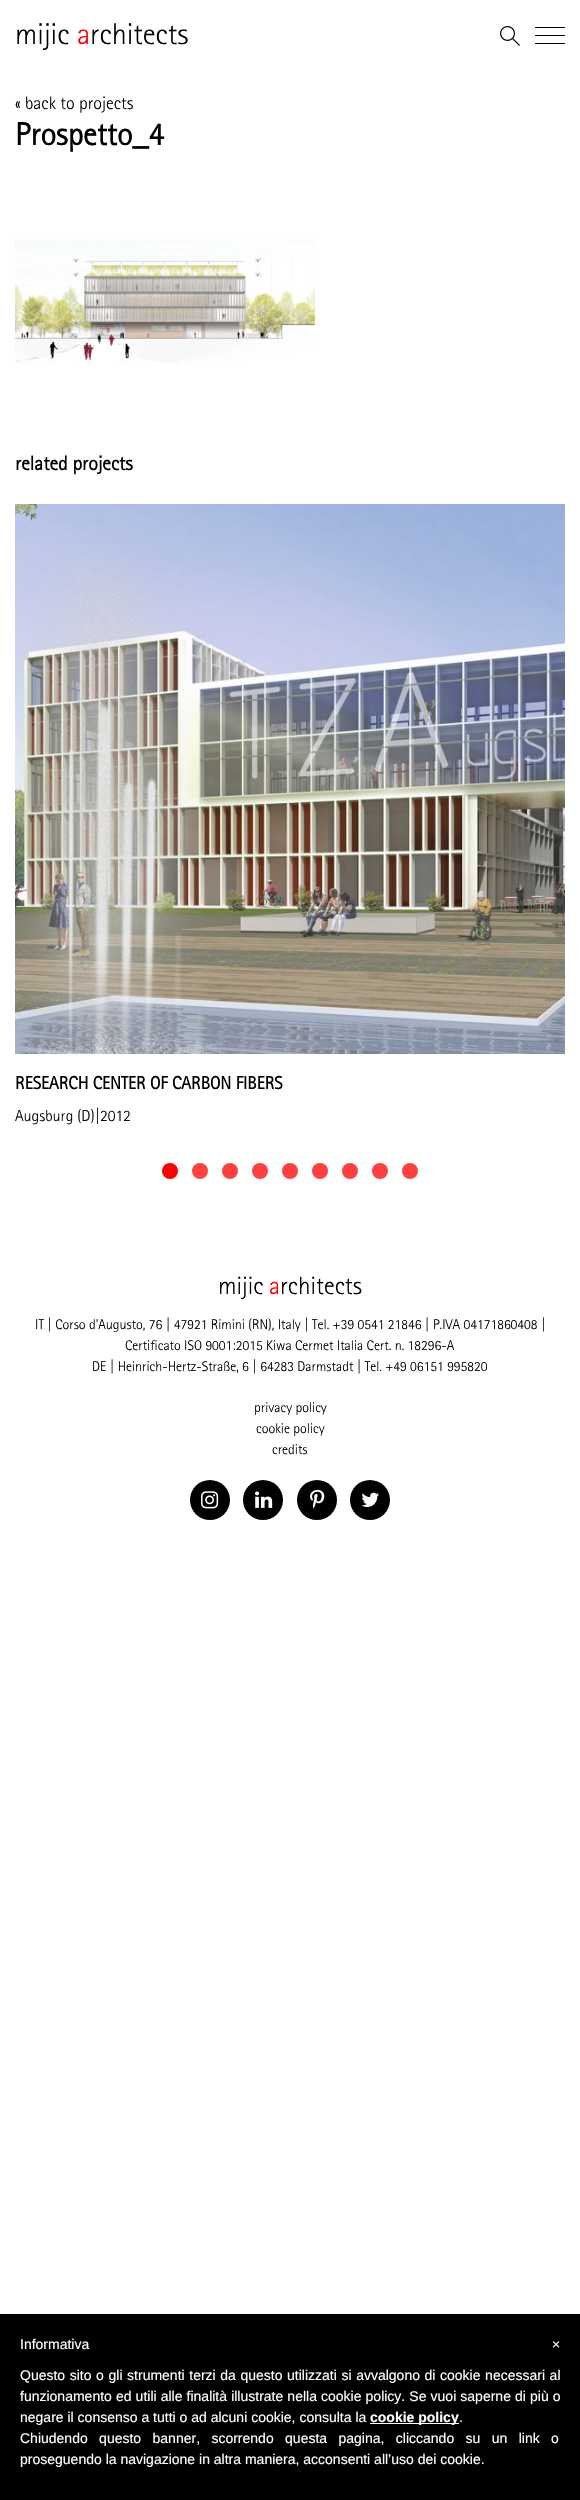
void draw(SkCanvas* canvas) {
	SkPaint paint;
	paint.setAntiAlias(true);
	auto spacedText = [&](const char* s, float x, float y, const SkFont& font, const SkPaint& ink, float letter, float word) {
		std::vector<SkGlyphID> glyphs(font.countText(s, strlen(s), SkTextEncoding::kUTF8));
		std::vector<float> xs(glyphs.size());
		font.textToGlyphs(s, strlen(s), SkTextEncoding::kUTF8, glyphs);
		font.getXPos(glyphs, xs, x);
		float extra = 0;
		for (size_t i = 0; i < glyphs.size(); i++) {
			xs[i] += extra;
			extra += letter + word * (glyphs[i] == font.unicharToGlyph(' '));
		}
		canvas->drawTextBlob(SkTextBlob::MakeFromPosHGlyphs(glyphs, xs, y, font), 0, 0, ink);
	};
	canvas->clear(0xffffffff);
	SkFont f1(fontMgr->matchFamilyStyle("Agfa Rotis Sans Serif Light", SkFontStyle(300, SkFontStyle::kNormal_Width, SkFontStyle::kUpright_Slant)), 30);
	f1.setSubpixel(true);
	paint.setColor(0xff000000);
	canvas->drawString("mijic", 15, 44, f1, paint);
	paint.setColor(0xffff0000);
	canvas->drawString("a", 77, 44, f1, paint);
	paint.setColor(0xff000000);
	canvas->drawString("rchitects", 90, 44, f1, paint);
	canvas->drawImageRect(SkImages::DeferredFromEncodedData(SkData::MakeFromFileName("img1.png")), SkRect::MakeXYWH(500, 26, 20, 20), SkSamplingOptions());
	canvas->drawRoundRect(SkRect::MakeXYWH(535, 35, 30, 1), 0.5, 0.5, paint);
	canvas->drawRoundRect(SkRect::MakeXYWH(535, 27, 30, 1), 0.5, 0.5, paint);
	canvas->drawRoundRect(SkRect::MakeXYWH(535, 43, 30, 1), 0.5, 0.5, paint);
	SkFont f2(fontMgr->matchFamilyStyle("Agfa Rotis Sans Serif Light", SkFontStyle(300, SkFontStyle::kNormal_Width, SkFontStyle::kUpright_Slant)), 18);
	f2.setSubpixel(true);
	canvas->drawString("« back to projects", 15, 109, f2, paint);
	SkFont f3(fontMgr->matchFamilyStyle("Agfa Rotis Sans Serif Light", SkFontStyle::Bold()), 32);
	f3.setSubpixel(true);
	canvas->drawString("Prospetto_4", 15, 145, f3, paint);
	canvas->drawImageRect(SkImages::DeferredFromEncodedData(SkData::MakeFromFileName("img2.png")), SkRect::MakeXYWH(15, 239, 300, 126), SkSamplingOptions());
	SkFont f4(fontMgr->matchFamilyStyle("Agfa Rotis Sans Serif Light", SkFontStyle::Bold()), 20);
	f4.setSubpixel(true);
	canvas->drawString("related projects", 15, 470, f4, paint);
	canvas->drawImageRect(SkImages::DeferredFromEncodedData(SkData::MakeFromFileName("img3.png")), SkRect::MakeXYWH(15, 504, 550, 550), SkSamplingOptions());
	SkFont f5(fontMgr->matchFamilyStyle("Agfa Rotis Sans Serif Light", SkFontStyle::Bold()), 18);
	f5.setSubpixel(true);
	canvas->drawString("RESEARCH CENTER OF CARBON FIBERS", 15, 1089, f5, paint);
	SkFont f6(fontMgr->matchFamilyStyle("Agfa Rotis Sans Serif Light", SkFontStyle(300, SkFontStyle::kNormal_Width, SkFontStyle::kUpright_Slant)), 16);
	f6.setSubpixel(true);
	canvas->drawString("Augsburg (D)|2012", 15, 1121, f6, paint);
	paint.setColor(0xffff0000);
	canvas->drawCircle(170, 1171, 8, paint);
	paint.setColor(0xffff4040);
	canvas->drawCircle(200, 1171, 8, paint);
	canvas->drawCircle(230, 1171, 8, paint);
	canvas->drawCircle(260, 1171, 8, paint);
	canvas->drawCircle(290, 1171, 8, paint);
	canvas->drawCircle(320, 1171, 8, paint);
	canvas->drawCircle(350, 1171, 8, paint);
	canvas->drawCircle(380, 1171, 8, paint);
	canvas->drawCircle(410, 1171, 8, paint);
	SkFont f7(fontMgr->matchFamilyStyle("Agfa Rotis Sans Serif Light", SkFontStyle(300, SkFontStyle::kNormal_Width, SkFontStyle::kUpright_Slant)), 25);
	f7.setSubpixel(true);
	paint.setColor(0xff000000);
	canvas->drawString("mijic", 218, 1294, f7, paint);
	paint.setColor(0xffff0000);
	canvas->drawString("a", 269, 1294, f7, paint);
	paint.setColor(0xff000000);
	canvas->drawString("rchitects", 280, 1294, f7, paint);
	SkFont f8(fontMgr->matchFamilyStyle("Agfa Rotis Sans Serif Light", SkFontStyle(300, SkFontStyle::kNormal_Width, SkFontStyle::kUpright_Slant)), 14);
	f8.setSubpixel(true);
	canvas->drawString("IT | Corso d'Augusto, 76 | 47921 Rimini (RN), Italy | Tel. +39 0541 21846 | P.IVA 04171860408 |", 35, 1329, f8, paint);
	canvas->drawString("Certificato ISO 9001:2015 Kiwa Cermet Italia Cert. n. 18296-A", 125, 1350, f8, paint);
	canvas->drawString("DE | Heinrich-Hertz-Straße, 6 | 64283 Darmstadt | Tel. +49 06151 995820", 92, 1371, f8, paint);
	canvas->drawString("privacy policy", 254, 1412, f8, paint);
	canvas->drawString("cookie policy", 256, 1433, f8, paint);
	canvas->drawString("credits", 272, 1454, f8, paint);
	canvas->drawCircle(210, 1500, 20, paint);
	canvas->drawImageRect(SkImages::DeferredFromEncodedData(SkData::MakeFromFileName("img4.png")), SkRect::MakeXYWH(201, 1491, 18, 18), SkSamplingOptions());
	canvas->drawCircle(263, 1500, 20, paint);
	canvas->drawImageRect(SkImages::DeferredFromEncodedData(SkData::MakeFromFileName("img5.png")), SkRect::MakeXYWH(255, 1491, 18, 17), SkSamplingOptions());
	canvas->drawCircle(317, 1500, 20, paint);
	canvas->drawImageRect(SkImages::DeferredFromEncodedData(SkData::MakeFromFileName("img6.png")), SkRect::MakeXYWH(310, 1489, 15, 20), SkSamplingOptions());
	canvas->drawCircle(370, 1500, 20, paint);
	canvas->drawImageRect(SkImages::DeferredFromEncodedData(SkData::MakeFromFileName("img7.png")), SkRect::MakeXYWH(361, 1492, 18, 15), SkSamplingOptions());
	canvas->drawRect(SkRect::MakeXYWH(0, 2314, 580, 186), paint);
	SkFont f9(fontMgr->matchFamilyStyle("Liberation Sans", SkFontStyle::Normal()), 14);
	f9.setSubpixel(true);
	paint.setColor(0xffffffff);
	canvas->drawString("Informativa", 20, 2349, f9, paint);
	spacedText("Questo sito o gli strumenti terzi da questo utilizzati si avvalgono di cookie necessari al", 20, 2380, f9, paint, 0, 0.7);
	spacedText("funzionamento ed utili alle finalità illustrate nella cookie policy. Se vuoi saperne di più o", 20, 2401, f9, paint, 0, 0.2);
	canvas->drawString("negare il consenso a tutti o ad alcuni cookie, consulta la", 20, 2422, f9, paint);
	canvas->drawRect(SkRect::MakeXYWH(370, 2423, 89, 1), paint);
	SkFont f10(fontMgr->matchFamilyStyle("Liberation Sans", SkFontStyle::Bold()), 14);
	f10.setSubpixel(true);
	canvas->drawString("cookie policy", 370, 2422, f10, paint);
	canvas->drawString(".", 459, 2422, f9, paint);
	spacedText("Chiudendo questo banner, scorrendo questa pagina, cliccando su un link o", 20, 2443, f9, paint, 0, 7.5);
	canvas->drawString("proseguendo la navigazione in altra maniera, acconsenti all’uso dei cookie.", 20, 2464, f9, paint);
	canvas->drawString("×", 552, 2349, f9, paint);
}
